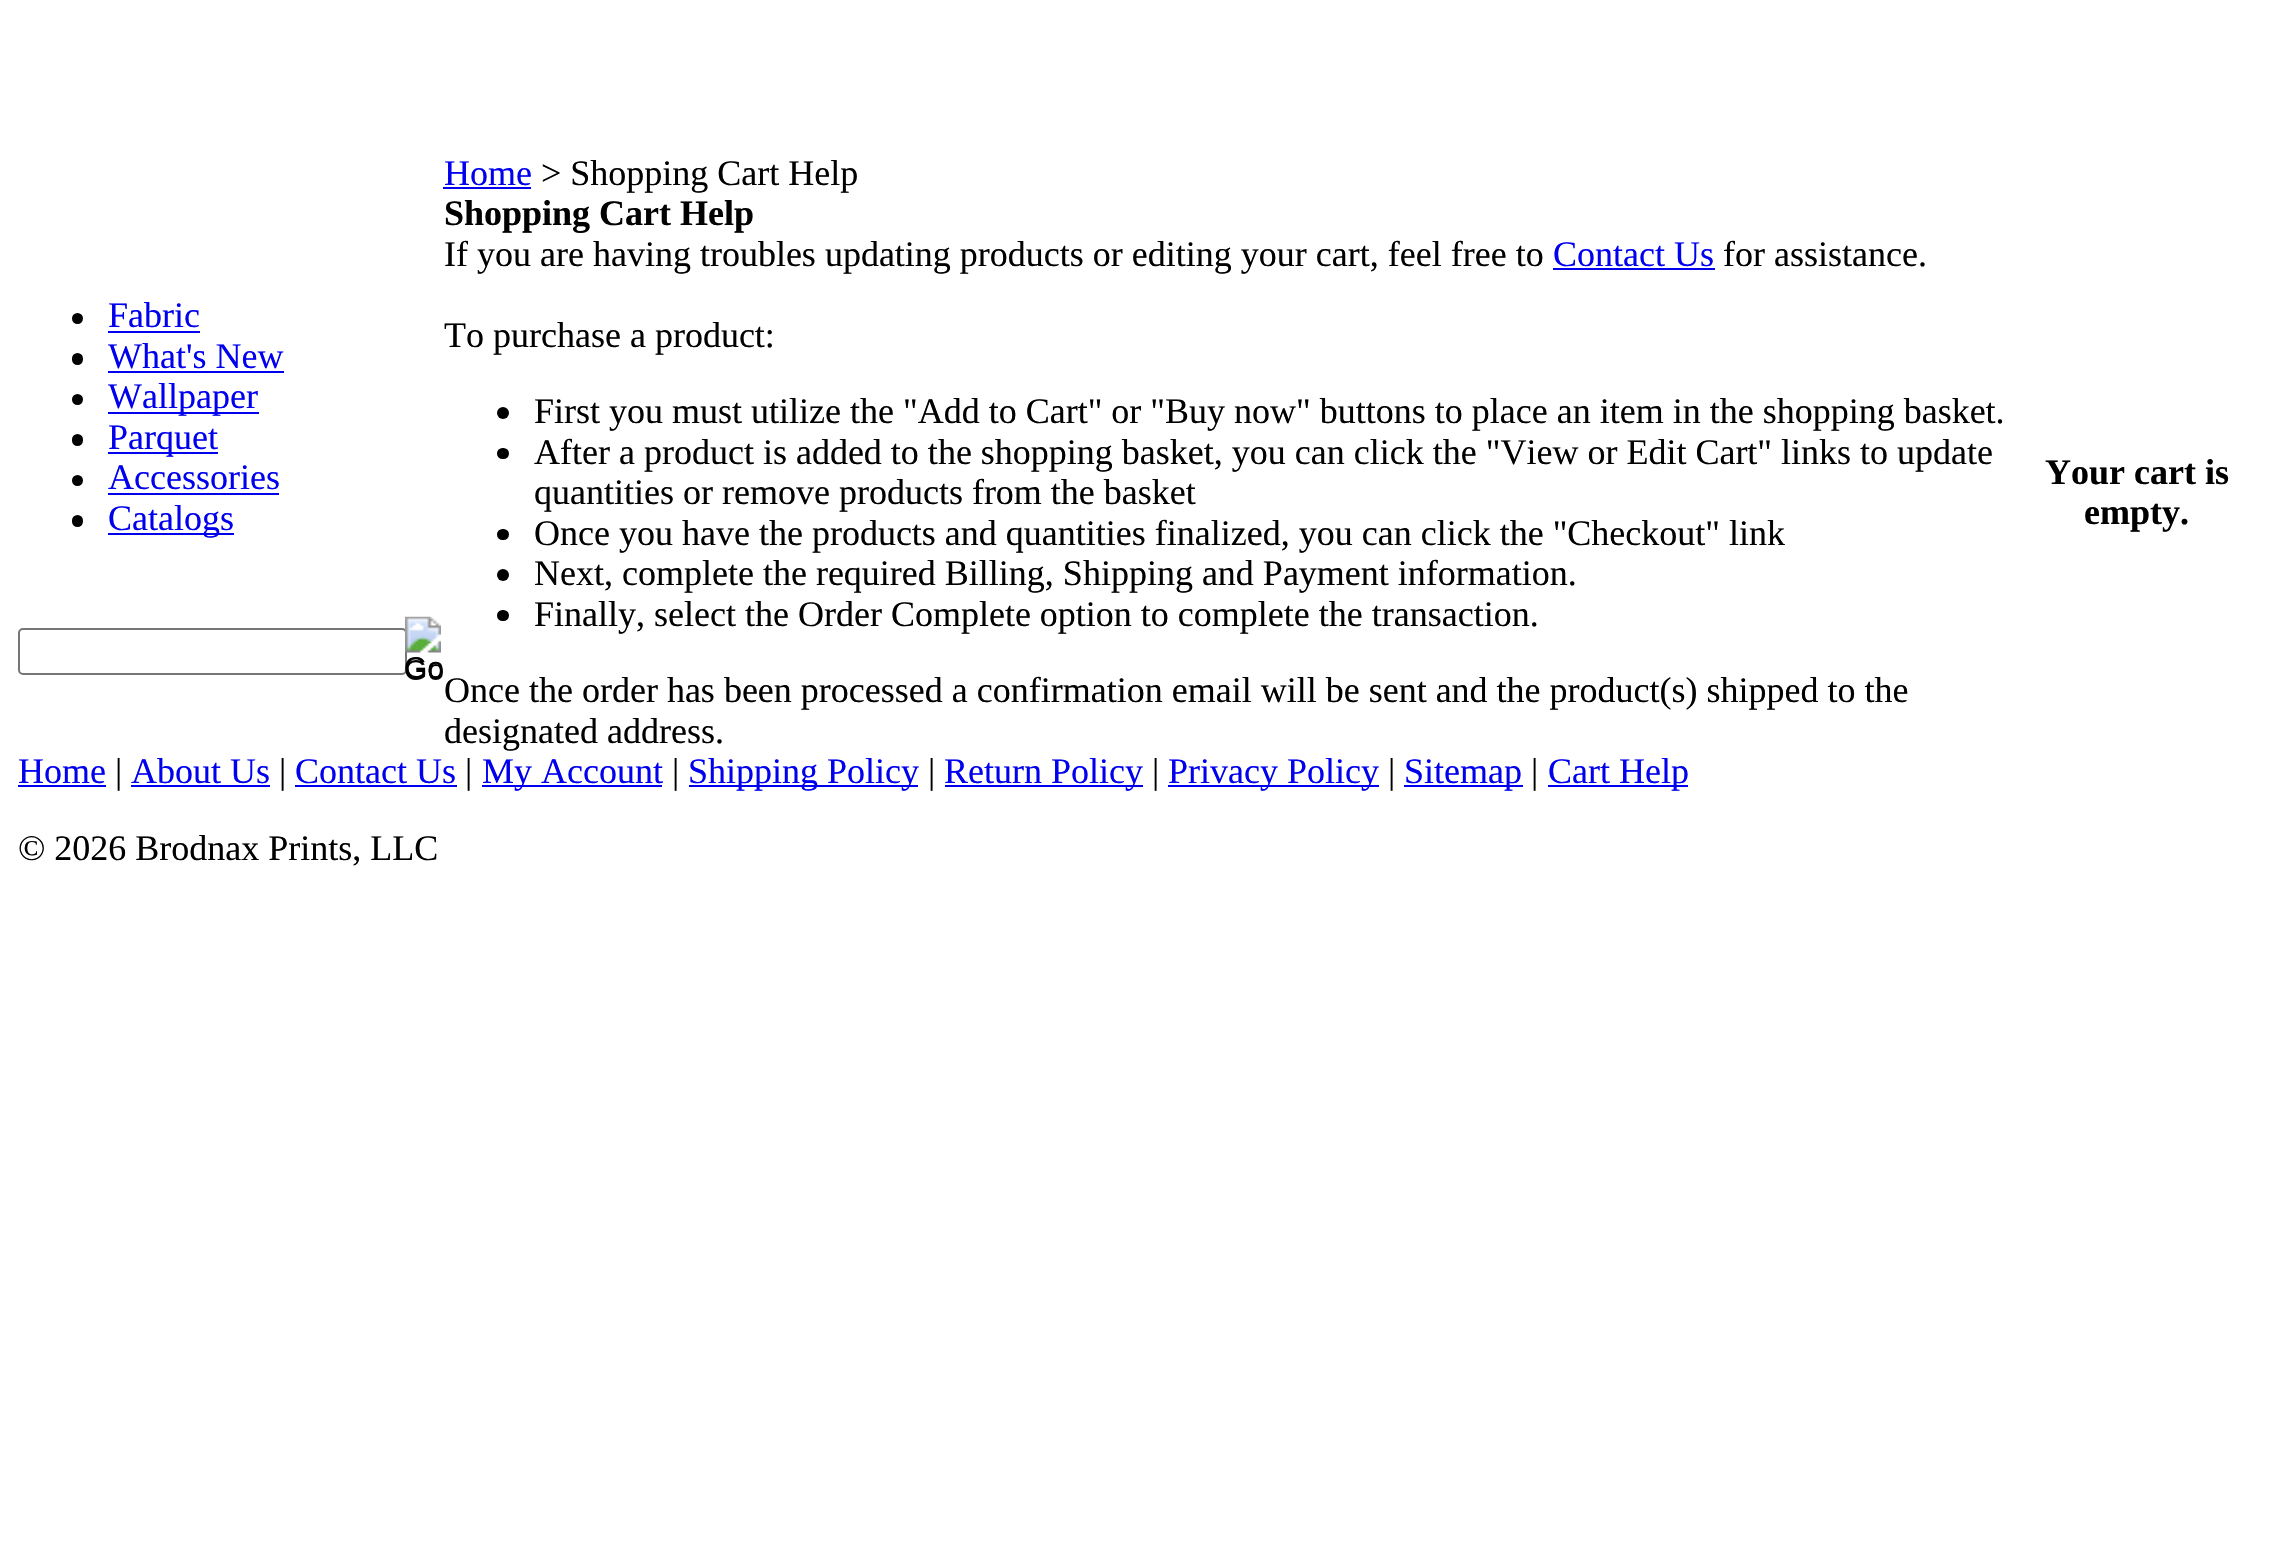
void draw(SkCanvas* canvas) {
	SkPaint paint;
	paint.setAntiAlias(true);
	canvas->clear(0xffffffff);
	paint.setColor(0xff000000);
	canvas->drawCircle(77.5, 318.5, 5.5, paint);
	SkFont f1(fontMgr->matchFamilyStyle("Liberation Serif", SkFontStyle::Normal()), 36);
	f1.setSubpixel(true);
	paint.setColor(0xff0000ee);
	canvas->drawString("Fabric", 108, 327, f1, paint);
	canvas->drawRect(SkRect::MakeXYWH(108, 331, 92, 2), paint);
	paint.setColor(0xff000000);
	canvas->drawRoundRect(SkRect::MakeXYWH(72, 353, 11, 12), 5.5, 5.5, paint);
	paint.setColor(0xff0000ee);
	canvas->drawString("What's New", 108, 368, f1, paint);
	canvas->drawRect(SkRect::MakeXYWH(108, 371, 176, 2), paint);
	paint.setColor(0xff000000);
	canvas->drawCircle(77.5, 399.5, 5.5, paint);
	paint.setColor(0xff0000ee);
	canvas->drawRect(SkRect::MakeXYWH(108, 412, 151, 2), paint);
	canvas->drawString("Wallpaper", 108, 408, f1, paint);
	paint.setColor(0xff000000);
	canvas->drawRoundRect(SkRect::MakeXYWH(72, 434, 11, 12), 5.5, 5.5, paint);
	paint.setColor(0xff0000ee);
	canvas->drawRect(SkRect::MakeXYWH(108, 452, 110, 2), paint);
	canvas->drawString("Parquet", 108, 449, f1, paint);
	paint.setColor(0xff000000);
	canvas->drawCircle(77.5, 480.5, 5.5, paint);
	paint.setColor(0xff0000ee);
	canvas->drawString("Accessories", 108, 489, f1, paint);
	canvas->drawRect(SkRect::MakeXYWH(108, 493, 171, 2), paint);
	paint.setColor(0xff000000);
	canvas->drawRoundRect(SkRect::MakeXYWH(72, 515, 11, 12), 5.5, 5.5, paint);
	paint.setColor(0xff0000ee);
	canvas->drawRect(SkRect::MakeXYWH(108, 533, 126, 2), paint);
	canvas->drawString("Catalogs", 108, 530, f1, paint);
	paint.setStroke(true);
	paint.setStrokeWidth(2);
	paint.setColor(0xff767676);
	canvas->drawRoundRect(SkRect::MakeXYWH(19, 629, 387, 45), 4, 4, paint);
	canvas->drawImageRect(SkImages::DeferredFromEncodedData(SkData::MakeFromFileName("img1.png")), SkRect::MakeXYWH(405, 616, 38, 64), SkSamplingOptions());
	SkFont f2(fontMgr->matchFamilyStyle("Liberation Sans", SkFontStyle::Normal()), 30);
	f2.setSubpixel(true);
	paint.setStroke(false);
	paint.setColor(0xff000000);
	canvas->drawString("Go", 404, 678, f2, paint);
	paint.setColor(0xff0000ee);
	canvas->drawString("Home", 444, 185, f1, paint);
	canvas->drawRect(SkRect::MakeXYWH(443, 187, 88, 2), paint);
	paint.setColor(0xff000000);
	canvas->drawString("> Shopping Cart Help", 541, 185, f1, paint);
	SkFont f3(fontMgr->matchFamilyStyle("Liberation Serif", SkFontStyle::Bold()), 36);
	f3.setSubpixel(true);
	canvas->drawString("Shopping Cart Help", 444, 225, f3, paint);
	canvas->drawString("If you are having troubles updating products or editing your cart, feel free to", 444, 266, f1, paint);
	paint.setColor(0xff0000ee);
	canvas->drawString("Contact Us", 1553, 266, f1, paint);
	canvas->drawRect(SkRect::MakeXYWH(1553, 268, 162, 2), paint);
	paint.setColor(0xff000000);
	canvas->drawString("for assistance.", 1723, 266, f1, paint);
	canvas->drawString("To purchase a product:", 444, 347, f1, paint);
	canvas->drawCircle(503, 413, 6, paint);
	canvas->drawString("First you must utilize the \"Add to Cart\" or \"Buy now\" buttons to place an item in the shopping basket.", 534, 423, f1, paint);
	canvas->drawRoundRect(SkRect::MakeXYWH(497, 448, 12, 11), 5.5, 5.5, paint);
	canvas->drawString("After a product is added to the shopping basket, you can click the \"View or Edit Cart\" links to update", 534, 464, f1, paint);
	canvas->drawString("quantities or remove products from the basket", 534, 504, f1, paint);
	canvas->drawRoundRect(SkRect::MakeXYWH(497, 529, 12, 11), 5.5, 5.5, paint);
	canvas->drawString("Once you have the products and quantities finalized, you can click the \"Checkout\" link", 534, 545, f1, paint);
	canvas->drawCircle(503, 575, 6, paint);
	canvas->drawString("Next, complete the required Billing, Shipping and Payment information.", 534, 585, f1, paint);
	canvas->drawRoundRect(SkRect::MakeXYWH(497, 610, 12, 11), 5.5, 5.5, paint);
	canvas->drawString("Finally, select the Order Complete option to complete the transaction.", 534, 626, f1, paint);
	canvas->drawString("Once the order has been processed a confirmation email will be sent and the product(s) shipped to the", 444, 702, f1, paint);
	canvas->drawString("designated address.", 444, 743, f1, paint);
	canvas->drawString("Your cart is", 2045, 484, f3, paint);
	canvas->drawString("empty.", 2084, 524, f3, paint);
	paint.setColor(0xff0000ee);
	canvas->drawString("Home", 18, 783, f1, paint);
	canvas->drawRect(SkRect::MakeXYWH(18, 785, 88, 2), paint);
	paint.setColor(0xff000000);
	canvas->drawString("|", 115, 783, f1, paint);
	paint.setColor(0xff0000ee);
	canvas->drawString("About Us", 131, 783, f1, paint);
	canvas->drawRect(SkRect::MakeXYWH(131, 785, 139, 2), paint);
	paint.setColor(0xff000000);
	canvas->drawString("|", 279, 783, f1, paint);
	paint.setColor(0xff0000ee);
	canvas->drawString("Contact Us", 295, 783, f1, paint);
	canvas->drawRect(SkRect::MakeXYWH(295, 785, 162, 2), paint);
	paint.setColor(0xff000000);
	canvas->drawString("|", 465, 783, f1, paint);
	paint.setColor(0xff0000ee);
	canvas->drawRect(SkRect::MakeXYWH(482, 785, 180, 2), paint);
	canvas->drawString("My Account", 482, 783, f1, paint);
	paint.setColor(0xff000000);
	canvas->drawString("|", 672, 783, f1, paint);
	paint.setColor(0xff0000ee);
	canvas->drawRect(SkRect::MakeXYWH(689, 785, 229, 2), paint);
	canvas->drawString("Shipping Policy", 688, 783, f1, paint);
	paint.setColor(0xff000000);
	canvas->drawString("|", 928, 783, f1, paint);
	paint.setColor(0xff0000ee);
	canvas->drawRect(SkRect::MakeXYWH(945, 785, 198, 2), paint);
	canvas->drawString("Return Policy", 944, 783, f1, paint);
	paint.setColor(0xff000000);
	canvas->drawString("|", 1152, 783, f1, paint);
	paint.setColor(0xff0000ee);
	canvas->drawRect(SkRect::MakeXYWH(1168, 785, 211, 2), paint);
	canvas->drawString("Privacy Policy", 1168, 783, f1, paint);
	paint.setColor(0xff000000);
	canvas->drawString("|", 1388, 783, f1, paint);
	paint.setColor(0xff0000ee);
	canvas->drawRect(SkRect::MakeXYWH(1404, 785, 119, 2), paint);
	canvas->drawString("Sitemap", 1404, 783, f1, paint);
	paint.setColor(0xff000000);
	canvas->drawString("|", 1531, 783, f1, paint);
	paint.setColor(0xff0000ee);
	canvas->drawRect(SkRect::MakeXYWH(1548, 785, 140, 2), paint);
	canvas->drawString("Cart Help", 1548, 783, f1, paint);
	paint.setColor(0xff000000);
	canvas->drawString("© 2026 Brodnax Prints, LLC", 18, 860, f1, paint);
}
